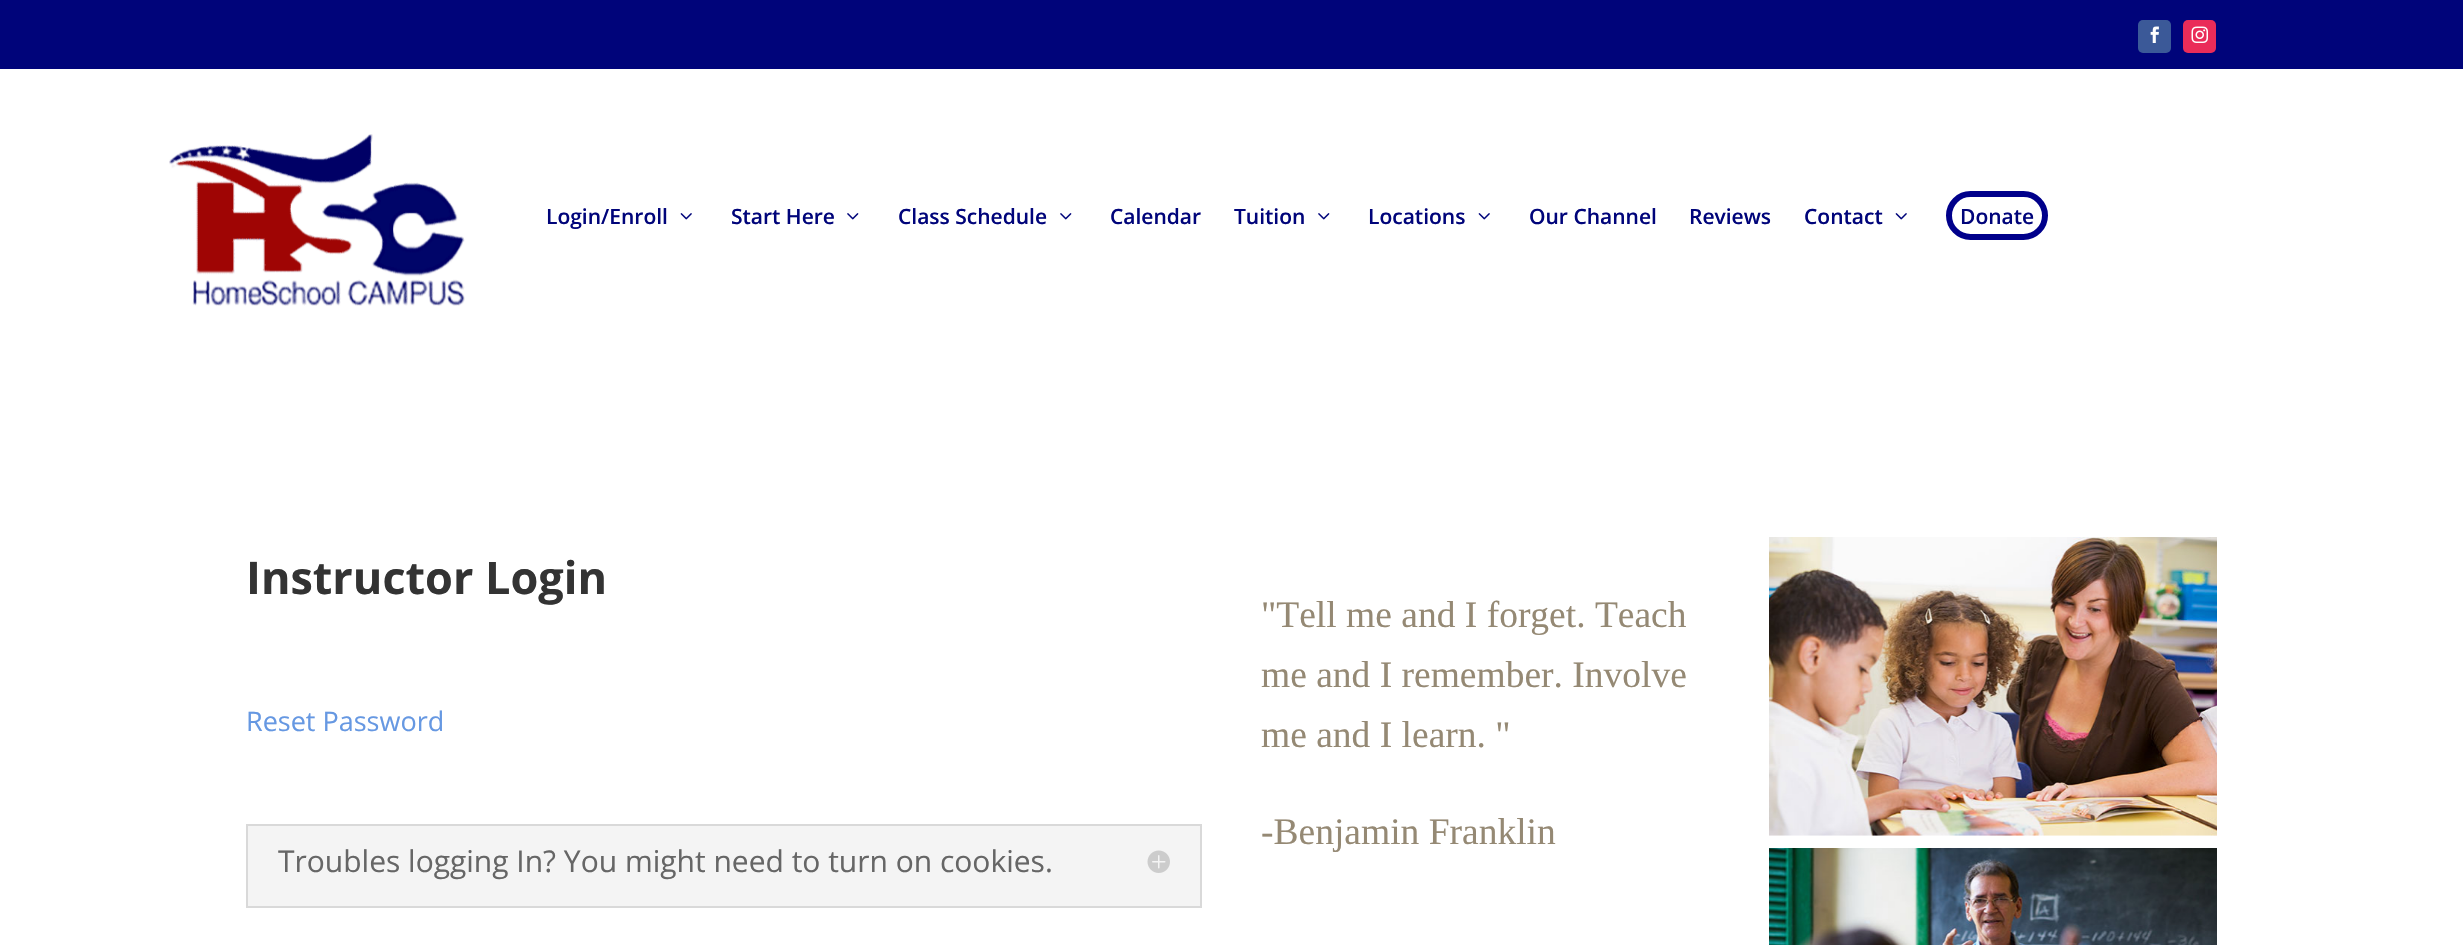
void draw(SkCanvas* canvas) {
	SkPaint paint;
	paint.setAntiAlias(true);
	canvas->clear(0xffffffff);
	paint.setColor(0xff00047a);
	canvas->drawRect(SkRect::MakeXYWH(0, 0, 2463, 69), paint);
	paint.setColor(0xff3b5998);
	canvas->drawRoundRect(SkRect::MakeXYWH(2138, 20, 33, 33), 5, 5, paint);
	canvas->drawImageRect(SkImages::DeferredFromEncodedData(SkData::MakeFromFileName("img1.png")), SkRect::MakeXYWH(2150, 26, 9, 17), SkSamplingOptions());
	paint.setColor(0xffea2c59);
	canvas->drawRoundRect(SkRect::MakeXYWH(2183, 20, 33, 33), 5, 5, paint);
	canvas->drawImageRect(SkImages::DeferredFromEncodedData(SkData::MakeFromFileName("img2.png")), SkRect::MakeXYWH(2191, 26, 17, 17), SkSamplingOptions());
	canvas->drawImageRect(SkImages::DeferredFromEncodedData(SkData::MakeFromFileName("img3.png")), SkRect::MakeXYWH(169, 134, 296, 172), SkSamplingOptions());
	SkFont f1(fontMgr->matchFamilyStyle("Open Sans", SkFontStyle(600, SkFontStyle::kNormal_Width, SkFontStyle::kUpright_Slant)), 21);
	f1.setSubpixel(true);
	paint.setColor(0xff00047a);
	canvas->drawString("Login/Enroll", 546, 224, f1, paint);
	canvas->drawImageRect(SkImages::DeferredFromEncodedData(SkData::MakeFromFileName("img4.png")), SkRect::MakeXYWH(680, 213, 12, 7), SkSamplingOptions());
	canvas->drawString("Start Here", 731, 224, f1, paint);
	canvas->drawImageRect(SkImages::DeferredFromEncodedData(SkData::MakeFromFileName("img5.png")), SkRect::MakeXYWH(847, 213, 12, 7), SkSamplingOptions());
	canvas->drawString("Class Schedule", 898, 224, f1, paint);
	canvas->drawImageRect(SkImages::DeferredFromEncodedData(SkData::MakeFromFileName("img5.png")), SkRect::MakeXYWH(1060, 213, 12, 7), SkSamplingOptions());
	canvas->drawString("Calendar", 1110, 224, f1, paint);
	canvas->drawString("Tuition", 1234, 224, f1, paint);
	canvas->drawImageRect(SkImages::DeferredFromEncodedData(SkData::MakeFromFileName("img5.png")), SkRect::MakeXYWH(1318, 213, 12, 7), SkSamplingOptions());
	canvas->drawString("Locations", 1368, 224, f1, paint);
	canvas->drawImageRect(SkImages::DeferredFromEncodedData(SkData::MakeFromFileName("img4.png")), SkRect::MakeXYWH(1478, 213, 12, 7), SkSamplingOptions());
	canvas->drawString("Our Channel", 1529, 224, f1, paint);
	canvas->drawString("Reviews", 1689, 224, f1, paint);
	canvas->drawString("Contact", 1804, 224, f1, paint);
	canvas->drawImageRect(SkImages::DeferredFromEncodedData(SkData::MakeFromFileName("img4.png")), SkRect::MakeXYWH(1895, 213, 12, 7), SkSamplingOptions());
	paint.setStroke(true);
	paint.setStrokeWidth(6);
	paint.setColor(0xff00008b);
	canvas->drawRoundRect(SkRect::MakeXYWH(1949, 194, 96, 43), 21.5, 21.5, paint);
	paint.setStroke(false);
	paint.setColor(0xff00047a);
	canvas->drawString("Donate", 1960, 224, f1, paint);
	SkFont f2(fontMgr->matchFamilyStyle("Open Sans", SkFontStyle::Bold()), 45);
	f2.setSubpixel(true);
	paint.setColor(0xff333333);
	canvas->drawString("Instructor Login", 246, 594, f2, paint);
	SkFont f3(fontMgr->matchFamilyStyle("Open Sans", SkFontStyle::Normal()), 27);
	f3.setSubpixel(true);
	paint.setColor(0xff6698e2);
	canvas->drawString("Reset Password", 246, 731, f3, paint);
	paint.setColor(0xfff4f4f4);
	canvas->drawRect(SkRect::MakeXYWH(247, 825, 954, 82), paint);
	paint.setStroke(true);
	paint.setStrokeWidth(2);
	paint.setColor(0xffd9d9d9);
	canvas->drawRect(SkRect::MakeXYWH(247, 825, 954, 82), paint);
	SkFont f4(fontMgr->matchFamilyStyle("Open Sans", SkFontStyle::Normal()), 30);
	f4.setSubpixel(true);
	paint.setStroke(false);
	paint.setColor(0xff666666);
	canvas->drawString("Troubles logging In? You might need to turn on cookies.", 278, 872, f4, paint);
	canvas->drawImageRect(SkImages::DeferredFromEncodedData(SkData::MakeFromFileName("img6.png")), SkRect::MakeXYWH(1147, 850, 23, 23), SkSamplingOptions());
	SkFont f5(fontMgr->matchFamilyStyle("Liberation Serif", SkFontStyle::Normal()), 37.5);
	f5.setSubpixel(true);
	paint.setColor(0xff958974);
	canvas->drawString("\"Tell me and I forget. Teach", 1261, 627, f5, paint);
	canvas->drawString("me and I remember. Involve", 1261, 687, f5, paint);
	canvas->drawString("me and I learn. \"", 1261, 747, f5, paint);
	canvas->drawString("-Benjamin Franklin", 1261, 844, f5, paint);
	canvas->drawImageRect(SkImages::DeferredFromEncodedData(SkData::MakeFromFileName("img7.png")), SkRect::MakeXYWH(1769, 537, 448, 299), SkSamplingOptions());
	canvas->drawImageRect(SkImages::DeferredFromEncodedData(SkData::MakeFromFileName("img8.png")), SkRect::MakeXYWH(1769, 848, 448, 97), SkSamplingOptions());
}
